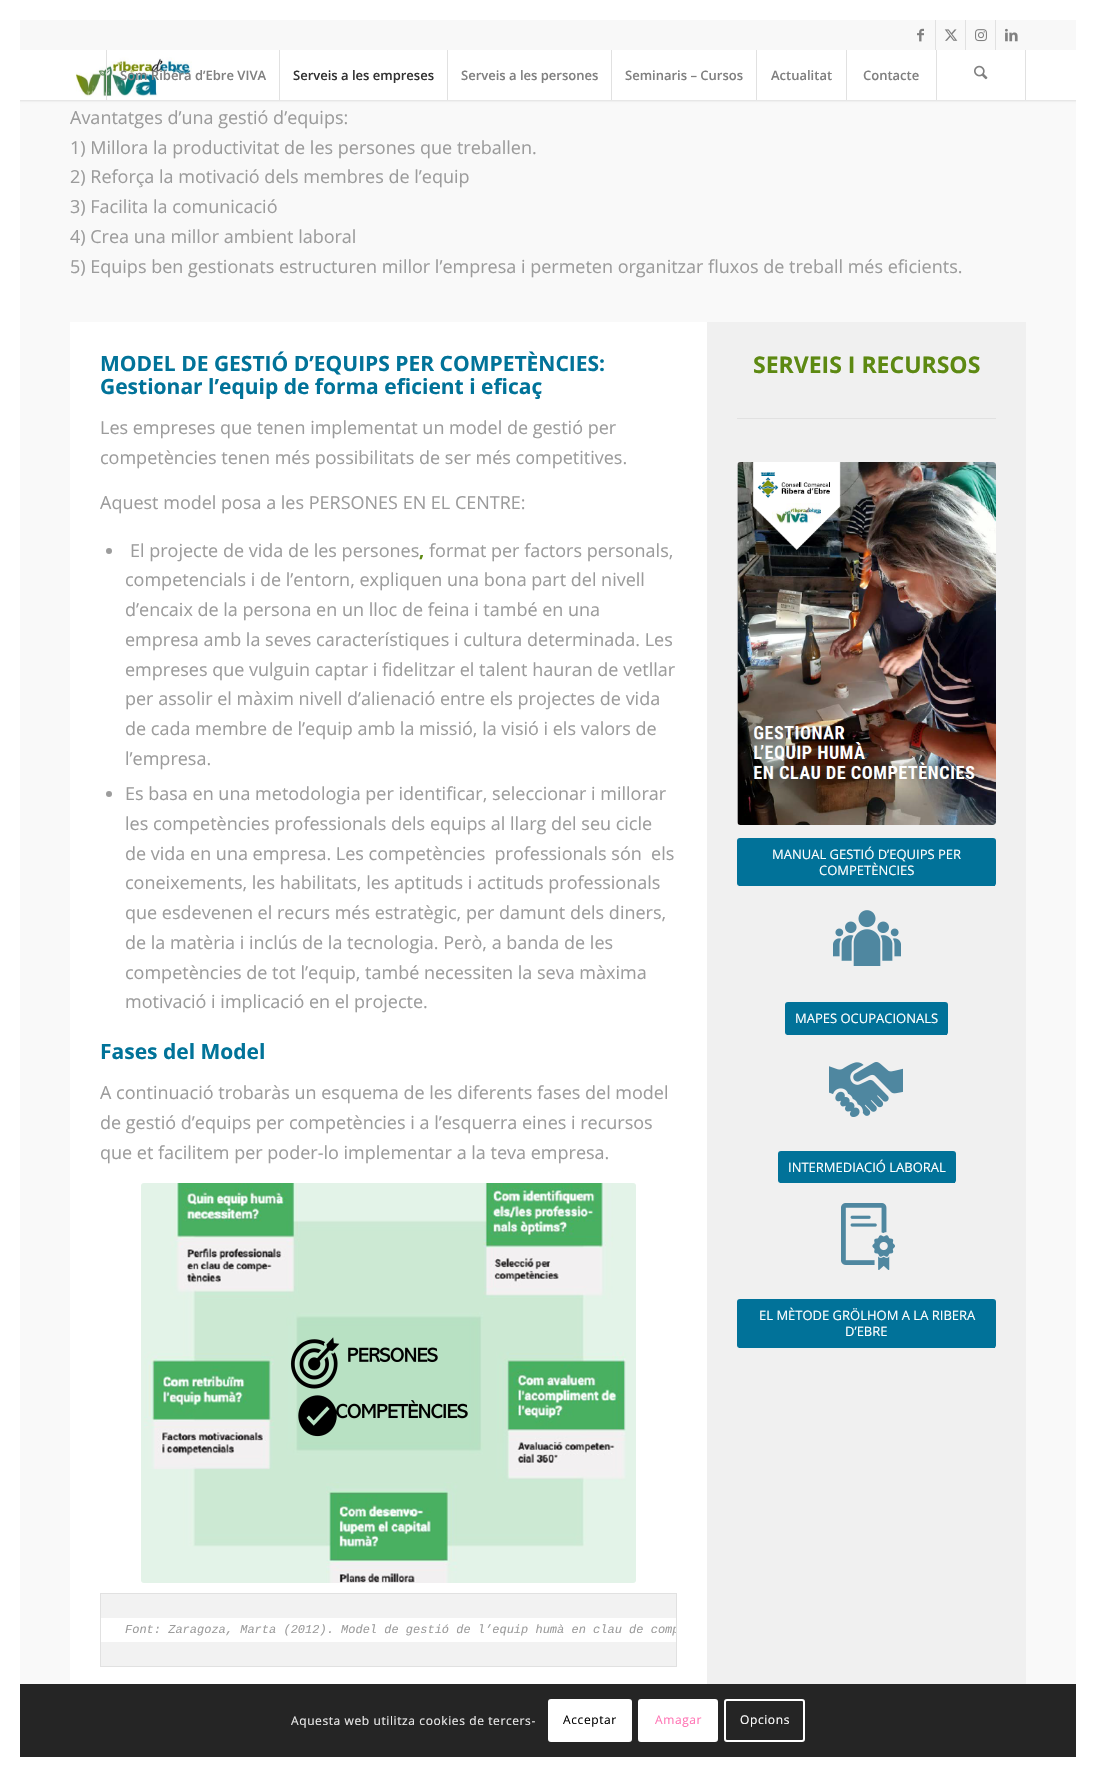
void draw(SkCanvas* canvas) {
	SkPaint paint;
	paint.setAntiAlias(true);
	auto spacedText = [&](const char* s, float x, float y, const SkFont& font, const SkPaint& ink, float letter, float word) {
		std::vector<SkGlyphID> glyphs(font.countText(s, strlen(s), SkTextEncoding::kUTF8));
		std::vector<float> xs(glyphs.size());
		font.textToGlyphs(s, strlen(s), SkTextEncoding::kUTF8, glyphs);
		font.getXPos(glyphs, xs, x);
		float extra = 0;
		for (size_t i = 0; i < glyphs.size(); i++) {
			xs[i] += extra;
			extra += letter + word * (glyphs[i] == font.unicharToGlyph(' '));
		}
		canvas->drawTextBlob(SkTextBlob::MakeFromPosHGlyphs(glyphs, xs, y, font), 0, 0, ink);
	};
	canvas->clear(0xfff9f9f9);
	paint.setColor(0x1a000000);
	paint.setMaskFilter(SkMaskFilter::MakeBlur(kNormal_SkBlurStyle, 1));
	canvas->drawRect(SkRect::MakeXYWH(-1, 19, 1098, 82), paint);
	paint.setMaskFilter(nullptr);
	paint.setColor(0xffffffff);
	canvas->drawRect(SkRect::MakeXYWH(0, 0, 20, 1777), paint);
	canvas->drawRect(SkRect::MakeXYWH(20, 0, 1056, 20), paint);
	canvas->drawRect(SkRect::MakeXYWH(1076, 0, 20, 1777), paint);
	paint.setColor(0xfff8f8f8);
	canvas->drawRect(SkRect::MakeXYWH(20, 20, 1056, 30), paint);
	paint.setColor(0xffe1e1e1);
	canvas->drawRect(SkRect::MakeXYWH(935, 20, 1, 30), paint);
	canvas->drawImageRect(SkImages::DeferredFromEncodedData(SkData::MakeFromFileName("img1.png")), SkRect::MakeXYWH(917, 28, 7, 14), SkSamplingOptions());
	canvas->drawRect(SkRect::MakeXYWH(965, 20, 1, 30), paint);
	canvas->drawImageRect(SkImages::DeferredFromEncodedData(SkData::MakeFromFileName("img2.png")), SkRect::MakeXYWH(944, 29, 14, 12), SkSamplingOptions());
	canvas->drawRect(SkRect::MakeXYWH(995, 20, 1, 30), paint);
	canvas->drawImageRect(SkImages::DeferredFromEncodedData(SkData::MakeFromFileName("img3.png")), SkRect::MakeXYWH(975, 29, 12, 13), SkSamplingOptions());
	canvas->drawImageRect(SkImages::DeferredFromEncodedData(SkData::MakeFromFileName("img4.png")), SkRect::MakeXYWH(1005, 28, 13, 14), SkSamplingOptions());
	paint.setColor(0xffffffff);
	canvas->drawRect(SkRect::MakeXYWH(20, 50, 1056, 50), paint);
	canvas->drawImageRect(SkImages::DeferredFromEncodedData(SkData::MakeFromFileName("img5.png")), SkRect::MakeXYWH(75, 57, 117, 40), SkSamplingOptions());
	paint.setColor(0xffe1e1e1);
	canvas->drawRect(SkRect::MakeXYWH(106, 50, 1, 50), paint);
	SkFont f1(fontMgr->matchFamilyStyle("Open Sans", SkFontStyle(600, SkFontStyle::kNormal_Width, SkFontStyle::kUpright_Slant)), 13);
	f1.setSubpixel(true);
	paint.setColor(0xff808080);
	canvas->drawString("Som Ribera d’Ebre VIVA", 120, 80, f1, paint);
	paint.setColor(0xffe1e1e1);
	canvas->drawRect(SkRect::MakeXYWH(279, 50, 1, 50), paint);
	paint.setColor(0xff333333);
	canvas->drawString("Serveis a les empreses", 293, 80, f1, paint);
	paint.setColor(0xffe1e1e1);
	canvas->drawRect(SkRect::MakeXYWH(447, 50, 1, 50), paint);
	paint.setColor(0xff808080);
	canvas->drawString("Serveis a les persones", 461, 80, f1, paint);
	paint.setColor(0xffe1e1e1);
	canvas->drawRect(SkRect::MakeXYWH(611, 50, 1, 50), paint);
	paint.setColor(0xff808080);
	canvas->drawString("Seminaris – Cursos", 625, 80, f1, paint);
	paint.setColor(0xffe1e1e1);
	canvas->drawRect(SkRect::MakeXYWH(756, 50, 1, 50), paint);
	paint.setColor(0xff808080);
	canvas->drawString("Actualitat", 771, 80, f1, paint);
	paint.setColor(0xffe1e1e1);
	canvas->drawRect(SkRect::MakeXYWH(846, 50, 1, 50), paint);
	paint.setColor(0xff808080);
	canvas->drawString("Contacte", 863, 80, f1, paint);
	paint.setColor(0xffe1e1e1);
	canvas->drawRect(SkRect::MakeXYWH(1025, 50, 1, 50), paint);
	canvas->drawRect(SkRect::MakeXYWH(936, 50, 1, 50), paint);
	canvas->drawImageRect(SkImages::DeferredFromEncodedData(SkData::MakeFromFileName("img6.png")), SkRect::MakeXYWH(974, 65, 14, 15), SkSamplingOptions());
	paint.setColor(0xff252525);
	canvas->drawRect(SkRect::MakeXYWH(20, 1684, 1056, 73), paint);
	SkFont f2(fontMgr->matchFamilyStyle("Open Sans", SkFontStyle::Normal()), 18);
	f2.setSubpixel(true);
	paint.setColor(0xff9c9c9c);
	canvas->drawString("Avantatges d’una gestió d’equips:", 70, 124, f2, paint);
	canvas->drawString("1) Millora la productivitat de les persones que treballen.", 70, 154, f2, paint);
	canvas->drawString("2) Reforça la motivació dels membres de l’equip", 70, 183, f2, paint);
	canvas->drawString("3) Facilita la comunicació", 70, 213, f2, paint);
	canvas->drawString("4) Crea una millor ambient laboral", 70, 243, f2, paint);
	canvas->drawString("5) Equips ben gestionats estructuren millor l’empresa i permeten organitzar fluxos de treball més eficients.", 70, 273, f2, paint);
	paint.setColor(0xffffffff);
	canvas->drawRect(SkRect::MakeXYWH(70, 322, 637, 1362), paint);
	SkFont f3(fontMgr->matchFamilyStyle("Open Sans", SkFontStyle::Bold()), 21);
	f3.setSubpixel(true);
	paint.setColor(0xff017399);
	canvas->drawString("MODEL DE GESTIÓ D’EQUIPS PER COMPETÈNCIES:", 100, 371, f3, paint);
	canvas->drawString("Gestionar l’equip de forma eficient i eficaç", 100, 394, f3, paint);
	paint.setColor(0xff9c9c9c);
	canvas->drawString("Les empreses que tenen implementat un model de gestió per", 100, 434, f2, paint);
	canvas->drawString("competències tenen més possibilitats de ser més competitives.", 100, 464, f2, paint);
	canvas->drawString("Aquest model posa a les PERSONES EN EL CENTRE:", 100, 509, f2, paint);
	canvas->drawCircle(109, 551, 3, paint);
	canvas->drawString("El projecte de vida de les persones", 130, 557, f2, paint);
	canvas->drawString("format per factors personals,", 429, 557, f2, paint);
	SkFont f4(fontMgr->matchFamilyStyle("Open Sans", SkFontStyle::Bold()), 18);
	f4.setSubpixel(true);
	paint.setColor(0xff5d8912);
	canvas->drawString(",", 419, 557, f4, paint);
	paint.setColor(0xff9c9c9c);
	canvas->drawString("competencials i de l’entorn, expliquen una bona part del nivell", 125, 586, f2, paint);
	canvas->drawString("d’encaix de la persona en un lloc de feina i també en una", 125, 616, f2, paint);
	canvas->drawString("empresa amb la seves característiques i cultura determinada. Les", 125, 646, f2, paint);
	canvas->drawString("empreses que vulguin captar i fidelitzar el talent hauran de vetllar", 125, 676, f2, paint);
	canvas->drawString("per assolir el màxim nivell d’alienació entre els projectes de vida", 125, 705, f2, paint);
	canvas->drawString("de cada membre de l’equip amb la missió, la visió i els valors de", 125, 735, f2, paint);
	canvas->drawString("l’empresa.", 125, 765, f2, paint);
	canvas->drawCircle(109, 794, 3, paint);
	canvas->drawString("Es basa en una metodologia per identificar, seleccionar i millorar", 125, 800, f2, paint);
	canvas->drawString("les competències professionals dels equips al llarg del seu cicle", 125, 830, f2, paint);
	canvas->drawString("de vida en una empresa. Les competències  professionals són  els", 125, 860, f2, paint);
	canvas->drawString("coneixements, les habilitats, les aptituds i actituds professionals", 125, 889, f2, paint);
	canvas->drawString("que esdevenen el recurs més estratègic, per damunt dels diners,", 125, 919, f2, paint);
	canvas->drawString("de la matèria i inclús de la tecnologia. Però, a banda de les", 125, 949, f2, paint);
	canvas->drawString("competències de tot l’equip, també necessiten la seva màxima", 125, 979, f2, paint);
	canvas->drawString("motivació i implicació en el projecte.", 125, 1008, f2, paint);
	paint.setColor(0xff017399);
	canvas->drawString("Fases del Model", 100, 1059, f3, paint);
	paint.setColor(0xff9c9c9c);
	canvas->drawString("A continuació trobaràs un esquema de les diferents fases del model", 100, 1099, f2, paint);
	canvas->drawString("de gestió d’equips per competències i a l’esquerra eines i recursos", 100, 1129, f2, paint);
	canvas->drawString("que et facilitem per poder-lo implementar a la teva empresa.", 100, 1159, f2, paint);
	canvas->drawImageRect(SkImages::DeferredFromEncodedData(SkData::MakeFromFileName("img7.png")), SkRect::MakeXYWH(141, 1183, 495, 400), SkSamplingOptions());
	paint.setColor(0xfff2f2f2);
	canvas->drawRect(SkRect::MakeXYWH(101, 1594, 575, 24), paint);
	canvas->drawRect(SkRect::MakeXYWH(101, 1642, 575, 24), paint);
	paint.setStroke(true);
	paint.setStrokeWidth(1);
	paint.setColor(0xffe1e1e1);
	canvas->drawRect(SkRect::MakeXYWH(100.5, 1593.5, 576, 73), paint);
	canvas->save();
	canvas->clipRect(SkRect::MakeXYWH(101, 1594, 575, 72));
	SkFont f5(fontMgr->matchFamilyStyle("Liberation Mono", SkFontStyle::Italic()), 12);
	f5.setSubpixel(true);
	paint.setStroke(false);
	paint.setColor(0xff9c9c9c);
	canvas->drawString("Font: Zaragoza, Marta (2012). Model de gestió de l’equip humà en clau de comp", 125, 1633, f5, paint);
	canvas->restore();
	paint.setColor(0xfff0f0f0);
	canvas->drawRect(SkRect::MakeXYWH(707, 322, 319, 1362), paint);
	SkFont f6(fontMgr->matchFamilyStyle("Open Sans", SkFontStyle::Bold()), 23);
	f6.setSubpixel(true);
	paint.setColor(0xff5d8912);
	canvas->drawString("SERVEIS I RECURSOS", 753, 373, f6, paint);
	paint.setColor(0xffe1e1e1);
	canvas->drawRect(SkRect::MakeXYWH(737, 418, 259, 1), paint);
	canvas->drawImageRect(SkImages::DeferredFromEncodedData(SkData::MakeFromFileName("img8.png")), SkRect::MakeXYWH(737, 462, 259, 363), SkSamplingOptions());
	paint.setColor(0xff017299);
	canvas->drawRoundRect(SkRect::MakeXYWH(737, 838, 259, 48), 3, 3, paint);
	canvas->drawRect(SkRect::MakeXYWH(739, 885, 256, 1), paint);
	SkFont f7(fontMgr->matchFamilyStyle("Open Sans", SkFontStyle::Normal()), 13);
	f7.setSubpixel(true);
	paint.setColor(0xffffffff);
	canvas->drawString("MANUAL GESTIÓ D’EQUIPS PER", 772, 859, f7, paint);
	canvas->drawString("COMPETÈNCIES", 819, 875, f7, paint);
	canvas->drawImageRect(SkImages::DeferredFromEncodedData(SkData::MakeFromFileName("img9.png")), SkRect::MakeXYWH(833, 910, 68, 56), SkSamplingOptions());
	paint.setColor(0xff017299);
	canvas->drawRoundRect(SkRect::MakeXYWH(785, 1002, 163, 33), 3, 3, paint);
	canvas->drawRect(SkRect::MakeXYWH(787, 1034, 160, 1), paint);
	paint.setColor(0xffffffff);
	canvas->drawString("MAPES OCUPACIONALS", 795, 1023, f7, paint);
	canvas->drawImageRect(SkImages::DeferredFromEncodedData(SkData::MakeFromFileName("img10.png")), SkRect::MakeXYWH(829, 1062, 74, 55), SkSamplingOptions());
	paint.setColor(0xff017299);
	canvas->drawRoundRect(SkRect::MakeXYWH(778, 1151, 178, 32), 3, 3, paint);
	canvas->drawRect(SkRect::MakeXYWH(780, 1182, 175, 1), paint);
	paint.setColor(0xffffffff);
	canvas->drawString("INTERMEDIACIÓ LABORAL", 788, 1172, f7, paint);
	canvas->drawImageRect(SkImages::DeferredFromEncodedData(SkData::MakeFromFileName("img11.png")), SkRect::MakeXYWH(841, 1203, 54, 67), SkSamplingOptions());
	paint.setColor(0xff017299);
	canvas->drawRoundRect(SkRect::MakeXYWH(737, 1299, 259, 49), 3, 3, paint);
	canvas->drawRect(SkRect::MakeXYWH(739, 1347, 256, 1), paint);
	paint.setColor(0xffffffff);
	canvas->drawString("EL MÈTODE GRÖLHOM A LA RIBERA", 759, 1320, f7, paint);
	canvas->drawString("D’EBRE", 845, 1336, f7, paint);
	SkFont f8(fontMgr->matchFamilyStyle("Open Sans", SkFontStyle::Normal()), 12);
	f8.setSubpixel(true);
	paint.setColor(0xffe9e9e9);
	spacedText("Aquesta web utilitza cookies de tercers-", 291, 1725, f8, paint, 0.6, 0);
	paint.setColor(0xffffffff);
	canvas->drawRoundRect(SkRect::MakeXYWH(548, 1699, 84, 43), 3, 3, paint);
	paint.setColor(0xff000000);
	spacedText("Acceptar", 563, 1724, f8, paint, 0.6, 0);
	paint.setColor(0xffffffff);
	canvas->drawRoundRect(SkRect::MakeXYWH(639, 1700, 78, 41), 2, 2, paint);
	paint.setStroke(true);
	paint.setStrokeWidth(2);
	canvas->drawRoundRect(SkRect::MakeXYWH(639, 1700, 78, 41), 2, 2, paint);
	paint.setStroke(false);
	paint.setColor(0xffff75b5);
	spacedText("Amagar", 655, 1724, f8, paint, 0.6, 0);
	paint.setStroke(true);
	paint.setColor(0xffffffff);
	canvas->drawRoundRect(SkRect::MakeXYWH(725, 1700, 79, 41), 2, 2, paint);
	paint.setStroke(false);
	spacedText("Opcions", 740, 1724, f8, paint, 0.6, 0);
	canvas->drawRect(SkRect::MakeXYWH(20, 1757, 1056, 20), paint);
}
